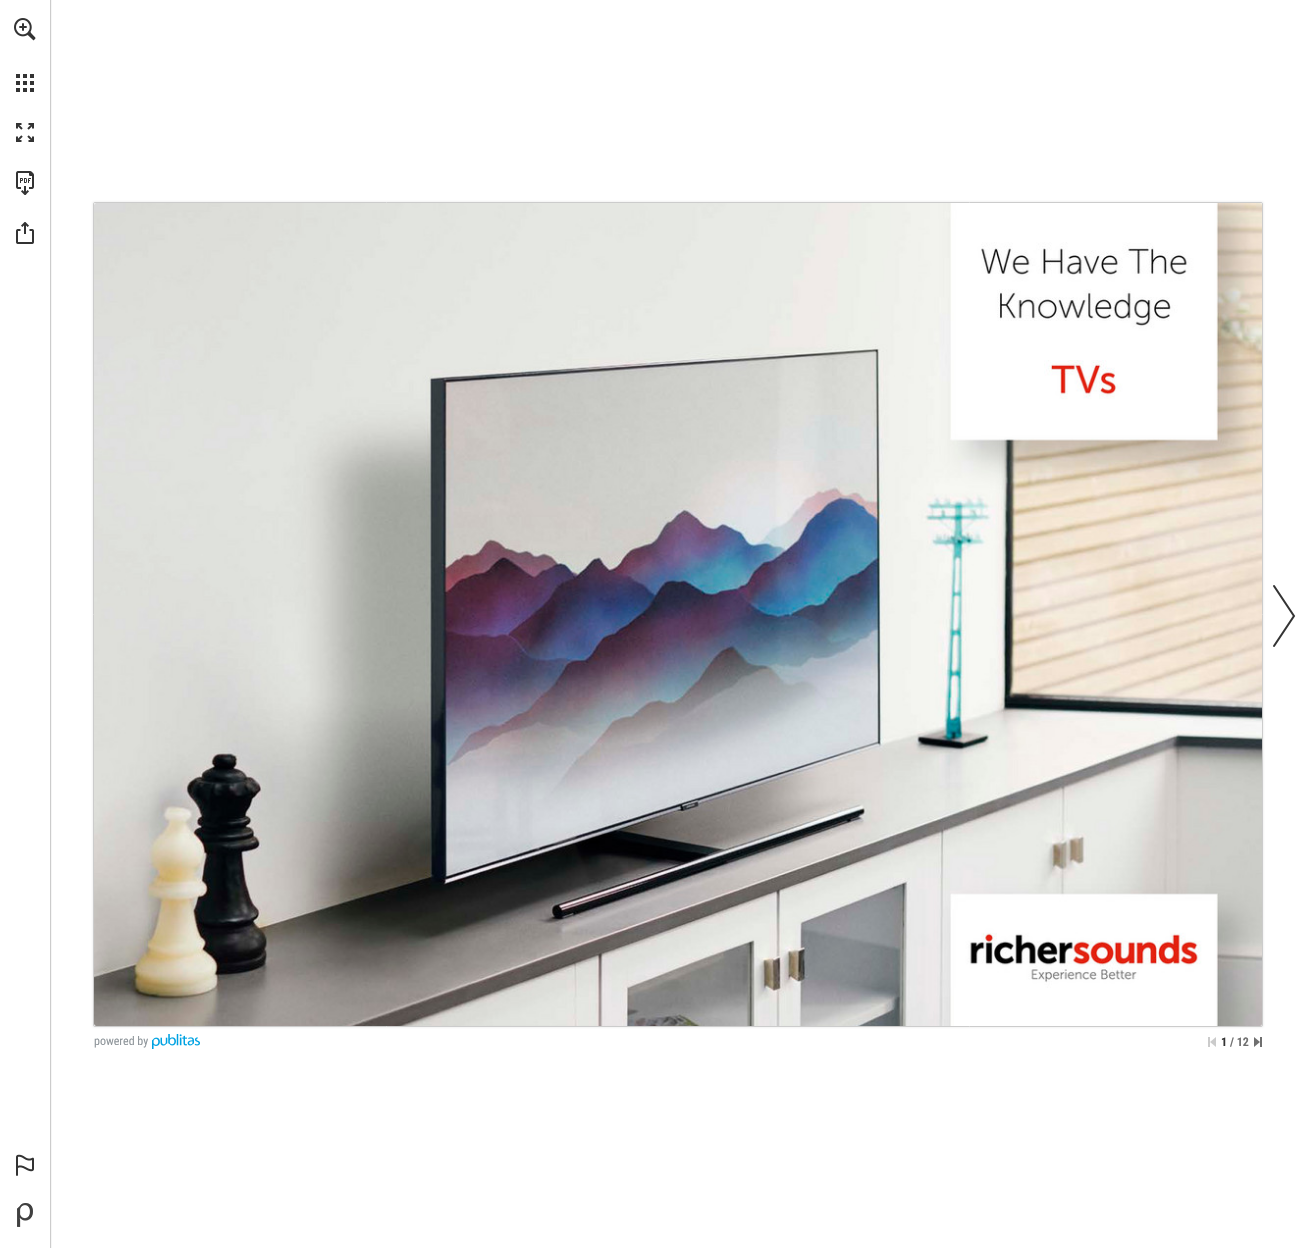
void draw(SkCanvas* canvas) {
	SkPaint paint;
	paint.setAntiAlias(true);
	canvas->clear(0xffffffff);
	paint.setColor(0x33000000);
	paint.setMaskFilter(SkMaskFilter::MakeBlur(kNormal_SkBlurStyle, 0.5));
	canvas->drawRect(SkRect::MakeXYWH(1, 0, 50, 1248), paint);
	paint.setMaskFilter(nullptr);
	paint.setColor(0xffffffff);
	canvas->drawRect(SkRect::MakeXYWH(0, 0, 50, 1248), paint);
	canvas->drawImageRect(SkImages::DeferredFromEncodedData(SkData::MakeFromFileName("img1.png")), SkRect::MakeXYWH(14, 18, 22, 23), SkSamplingOptions());
	canvas->drawImageRect(SkImages::DeferredFromEncodedData(SkData::MakeFromFileName("img2.png")), SkRect::MakeXYWH(16, 74, 18, 18), SkSamplingOptions());
	canvas->drawImageRect(SkImages::DeferredFromEncodedData(SkData::MakeFromFileName("img3.png")), SkRect::MakeXYWH(16, 123, 18, 19), SkSamplingOptions());
	canvas->drawImageRect(SkImages::DeferredFromEncodedData(SkData::MakeFromFileName("img4.png")), SkRect::MakeXYWH(16, 171, 18, 24), SkSamplingOptions());
	canvas->drawImageRect(SkImages::DeferredFromEncodedData(SkData::MakeFromFileName("img5.png")), SkRect::MakeXYWH(16, 222, 18, 22), SkSamplingOptions());
	canvas->drawImageRect(SkImages::DeferredFromEncodedData(SkData::MakeFromFileName("img6.png")), SkRect::MakeXYWH(16, 1154, 18, 22), SkSamplingOptions());
	canvas->drawImageRect(SkImages::DeferredFromEncodedData(SkData::MakeFromFileName("img7.png")), SkRect::MakeXYWH(17, 1203, 16, 24), SkSamplingOptions());
	paint.setColor(0x0d121212);
	paint.setMaskFilter(SkMaskFilter::MakeBlur(kNormal_SkBlurStyle, 1));
	canvas->drawRoundRect(SkRect::MakeXYWH(92, 201, 1172, 827), 3, 3, paint);
	paint.setMaskFilter(nullptr);
	paint.setColor(0xffffffff);
	canvas->drawRoundRect(SkRect::MakeXYWH(93.5, 202.5, 1169, 824), 1.5, 1.5, paint);
	paint.setStroke(true);
	paint.setStrokeWidth(1);
	paint.setColor(0xffcccccc);
	canvas->drawRoundRect(SkRect::MakeXYWH(93.5, 202.5, 1169, 824), 1.5, 1.5, paint);
	canvas->drawImageRect(SkImages::DeferredFromEncodedData(SkData::MakeFromFileName("img8.png")), SkRect::MakeXYWH(94, 203, 1168, 823), SkSamplingOptions());
	canvas->drawImageRect(SkImages::DeferredFromEncodedData(SkData::MakeFromFileName("img9.png")), SkRect::MakeXYWH(152, 1034, 48, 15), SkSamplingOptions());
	SkFont f1(fontMgr->matchFamilyStyle("Roboto Condensed", SkFontStyle::Normal()), 12);
	f1.setSubpixel(true);
	paint.setStroke(false);
	paint.setColor(0xff8f969b);
	canvas->drawString("powered by", 94, 1045, f1, paint);
	canvas->drawImageRect(SkImages::DeferredFromEncodedData(SkData::MakeFromFileName("img10.png")), SkRect::MakeXYWH(1273, 585, 23, 62), SkSamplingOptions());
	canvas->drawImageRect(SkImages::DeferredFromEncodedData(SkData::MakeFromFileName("img11.png")), SkRect::MakeXYWH(1208, 1037, 8, 10), SkSamplingOptions());
	SkFont f2(fontMgr->matchFamilyStyle("Roboto Condensed", SkFontStyle::Bold()), 12);
	f2.setSubpixel(true);
	paint.setColor(0xff333333);
	canvas->drawString("1", 1221, 1046, f2, paint);
	paint.setColor(0xff707070);
	canvas->drawString("/ 12", 1230, 1046, f2, paint);
	canvas->drawImageRect(SkImages::DeferredFromEncodedData(SkData::MakeFromFileName("img12.png")), SkRect::MakeXYWH(1254, 1037, 8, 10), SkSamplingOptions());
}
